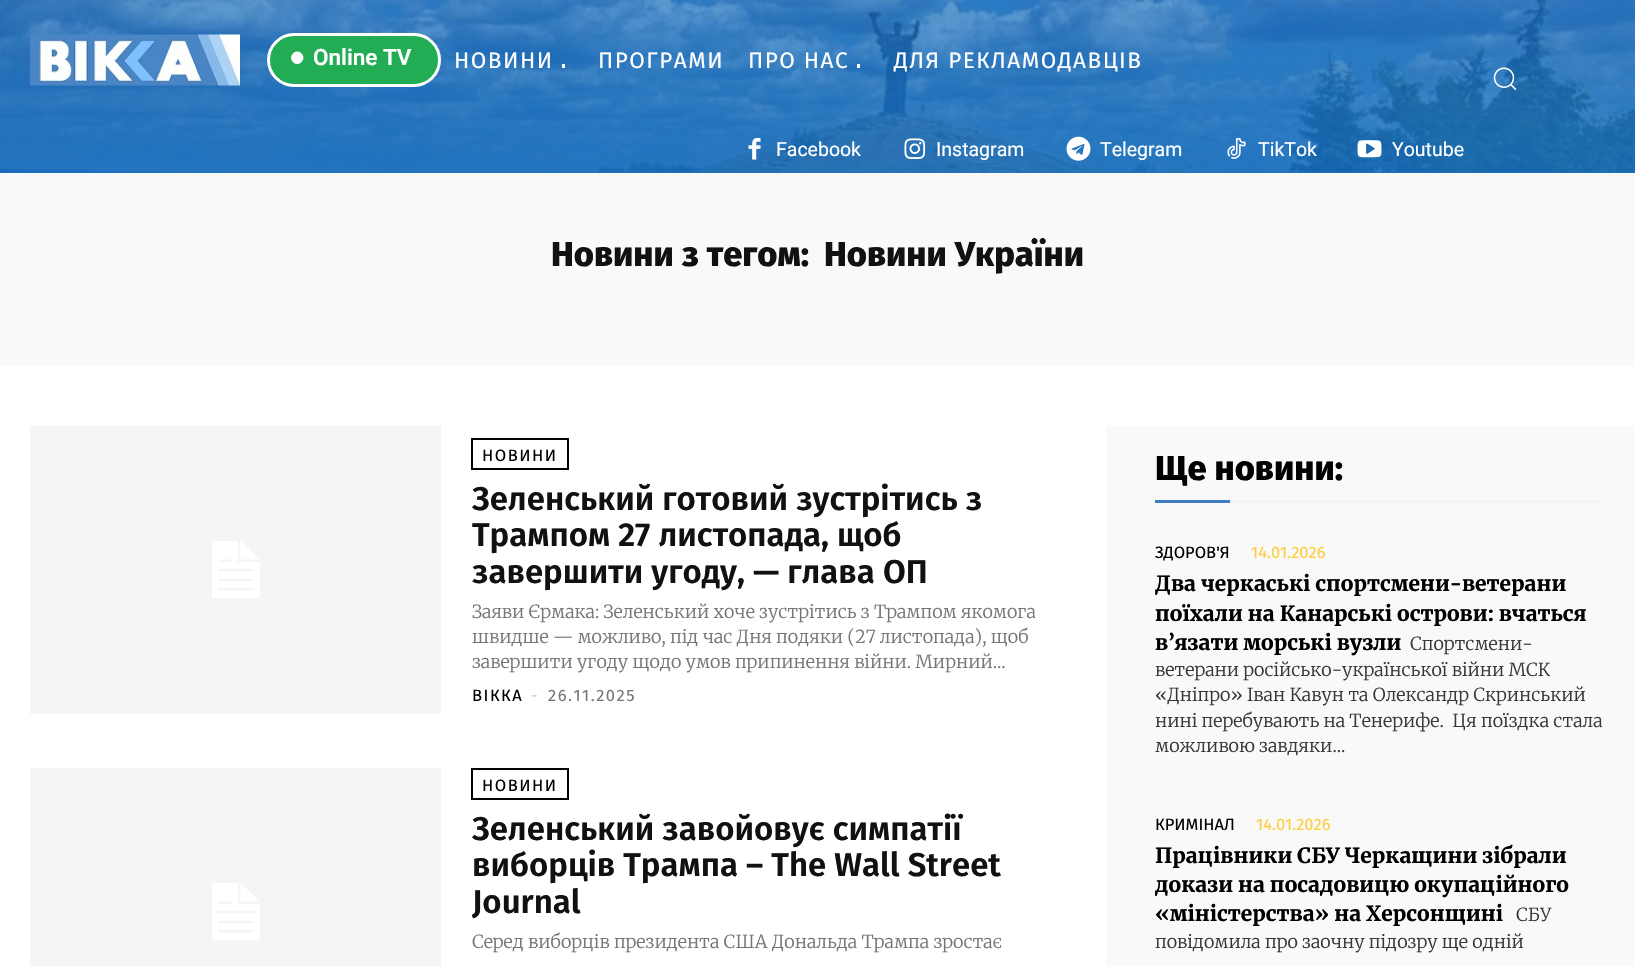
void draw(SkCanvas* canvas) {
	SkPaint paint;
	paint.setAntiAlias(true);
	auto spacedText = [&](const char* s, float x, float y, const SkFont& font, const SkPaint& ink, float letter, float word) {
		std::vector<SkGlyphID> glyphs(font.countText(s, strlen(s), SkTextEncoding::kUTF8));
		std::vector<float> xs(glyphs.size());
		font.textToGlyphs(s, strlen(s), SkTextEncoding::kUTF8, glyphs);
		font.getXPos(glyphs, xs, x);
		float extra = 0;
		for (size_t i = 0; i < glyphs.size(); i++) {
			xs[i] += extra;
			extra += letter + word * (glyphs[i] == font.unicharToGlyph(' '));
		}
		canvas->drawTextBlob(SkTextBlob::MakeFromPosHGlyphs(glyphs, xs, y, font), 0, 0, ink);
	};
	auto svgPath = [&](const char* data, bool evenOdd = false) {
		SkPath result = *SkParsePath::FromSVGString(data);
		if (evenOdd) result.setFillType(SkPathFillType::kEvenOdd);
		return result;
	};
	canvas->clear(0xffffffff);
	paint.setColor(0xff5b98ce);
	canvas->drawRect(SkRect::MakeXYWH(0, 172, 1635, 1), paint);
	canvas->drawImageRect(SkImages::DeferredFromEncodedData(SkData::MakeFromFileName("img1.png")), SkRect::MakeXYWH(0, 0, 1635, 173), SkSamplingOptions());
	{
		const SkColor colors[] = {0xb81e73be, 0xde156fbf};
		const float stops[] = {0, 1};
		const SkPoint ends[] = {{818, 0}, {818, 173}};
		paint.setShader(SkGradientShader::MakeLinear(ends, colors, stops, 2, SkTileMode::kClamp));
		paint.setAlpha(255);
	}
	canvas->drawRect(SkRect::MakeXYWH(0, 0, 1635, 173), paint);
	canvas->drawImageRect(SkImages::DeferredFromEncodedData(SkData::MakeFromFileName("img2.png")), SkRect::MakeXYWH(30, 34, 210, 52), SkSamplingOptions());
	paint.setShader(nullptr);
	paint.setColor(0xff22ad55);
	canvas->drawRoundRect(SkRect::MakeXYWH(268.5, 34.5, 171, 51), 25.5, 25.5, paint);
	paint.setStroke(true);
	paint.setStrokeWidth(3);
	paint.setColor(0xffffffff);
	canvas->drawRoundRect(SkRect::MakeXYWH(268.5, 34.5, 171, 51), 25.5, 25.5, paint);
	paint.setStroke(false);
	canvas->drawPath(svgPath("M293 53.5C298.5 47.5 307.5 56.5 301.5 62C296 68 287 59 293 53.5Z"), paint);
	SkFont f1(fontMgr->matchFamilyStyle("Roboto", SkFontStyle(600, SkFontStyle::kNormal_Width, SkFontStyle::kUpright_Slant)), 22.5);
	f1.setSubpixel(true);
	canvas->drawString("Online TV", 313, 65, f1, paint);
	SkFont f2(fontMgr->matchFamilyStyle("Fira Sans", SkFontStyle::Normal()), 22.5);
	f2.setSubpixel(true);
	spacedText("НОВИНИ", 454, 68, f2, paint, 1.5, 0);
	canvas->drawRect(SkRect::MakeXYWH(562, 64, 3, 4), paint);
	spacedText("ПРОГРАМИ", 598, 68, f2, paint, 1.5, 0);
	spacedText("ПРО НАС", 748, 68, f2, paint, 1.5, 0);
	canvas->drawRect(SkRect::MakeXYWH(857, 64, 3, 4), paint);
	spacedText("ДЛЯ РЕКЛАМОДАВЦІВ", 894, 68, f2, paint, 1.5, 0);
	canvas->drawImageRect(SkImages::DeferredFromEncodedData(SkData::MakeFromFileName("img3.png")), SkRect::MakeXYWH(1493, 67, 24, 23), SkSamplingOptions());
	canvas->drawImageRect(SkImages::DeferredFromEncodedData(SkData::MakeFromFileName("img4.png")), SkRect::MakeXYWH(748, 137, 13, 23), SkSamplingOptions());
	SkFont f3(fontMgr->matchFamilyStyle("Roboto", SkFontStyle::Normal()), 19.5);
	f3.setSubpixel(true);
	canvas->drawString("Facebook", 776, 156, f3, paint);
	canvas->drawImageRect(SkImages::DeferredFromEncodedData(SkData::MakeFromFileName("img5.png")), SkRect::MakeXYWH(904, 138, 22, 21), SkSamplingOptions());
	canvas->drawString("Instagram", 936, 156, f3, paint);
	canvas->drawImageRect(SkImages::DeferredFromEncodedData(SkData::MakeFromFileName("img6.png")), SkRect::MakeXYWH(1066, 136, 25, 25), SkSamplingOptions());
	canvas->drawString("Telegram", 1100, 156, f3, paint);
	canvas->drawImageRect(SkImages::DeferredFromEncodedData(SkData::MakeFromFileName("img7.png")), SkRect::MakeXYWH(1227, 138, 19, 21), SkSamplingOptions());
	canvas->drawString("TikTok", 1258, 156, f3, paint);
	canvas->drawImageRect(SkImages::DeferredFromEncodedData(SkData::MakeFromFileName("img8.png")), SkRect::MakeXYWH(1357, 140, 25, 18), SkSamplingOptions());
	canvas->drawString("Youtube", 1392, 156, f3, paint);
	paint.setColor(0xfff9f9f9);
	canvas->drawRect(SkRect::MakeXYWH(0, 173, 1635, 193), paint);
	SkFont f4(fontMgr->matchFamilyStyle("Fira Sans", SkFontStyle(800, SkFontStyle::kNormal_Width, SkFontStyle::kUpright_Slant)), 34.5);
	f4.setSubpixel(true);
	paint.setColor(0xff111111);
	canvas->drawString("Новини з тегом:", 551, 266, f4, paint);
	canvas->drawString("Новини України", 824, 266, f4, paint);
	canvas->drawImageRect(SkImages::DeferredFromEncodedData(SkData::MakeFromFileName("img9.png")), SkRect::MakeXYWH(30, 426, 411, 288), SkSamplingOptions());
	paint.setStroke(true);
	paint.setStrokeWidth(2);
	paint.setColor(0xff000000);
	canvas->drawRect(SkRect::MakeXYWH(472, 439, 96, 30), paint);
	SkFont f5(fontMgr->matchFamilyStyle("Fira Sans", SkFontStyle::Normal()), 16.5);
	f5.setSubpixel(true);
	paint.setStroke(false);
	spacedText("НОВИНИ", 482, 461, f5, paint, 1.5, 0);
	SkFont f6(fontMgr->matchFamilyStyle("Fira Sans", SkFontStyle(600, SkFontStyle::kNormal_Width, SkFontStyle::kUpright_Slant)), 33);
	f6.setSubpixel(true);
	paint.setColor(0xff111111);
	canvas->drawString("Зеленський готовий зустрітись з", 472, 510, f6, paint);
	canvas->drawString("Трампом 27 листопада, щоб", 472, 546, f6, paint);
	canvas->drawString("завершити угоду, — глава ОП", 472, 583, f6, paint);
	SkFont f7(fontMgr->matchFamilyStyle("Merriweather", SkFontStyle(300, SkFontStyle::kNormal_Width, SkFontStyle::kUpright_Slant)), 18);
	f7.setSubpixel(true);
	paint.setColor(0xff767676);
	canvas->drawString("Заяви Єрмака: Зеленський хоче зустрітись з Трампом якомога", 472, 618, f7, paint);
	canvas->drawString("швидше — можливо, під час Дня подяки (27 листопада), щоб", 472, 643, f7, paint);
	canvas->drawString("завершити угоду щодо умов припинення війни. Мирний...", 472, 668, f7, paint);
	paint.setColor(0xff000000);
	spacedText("ВІККА", 472, 701, f5, paint, 1.5, 0);
	paint.setColor(0xffcccccc);
	spacedText("-", 531, 701, f5, paint, 1.5, 0);
	paint.setColor(0xff767676);
	spacedText("26.11.2025", 548, 701, f5, paint, 1.5, 0);
	canvas->drawImageRect(SkImages::DeferredFromEncodedData(SkData::MakeFromFileName("img10.png")), SkRect::MakeXYWH(30, 768, 411, 198), SkSamplingOptions());
	paint.setStroke(true);
	paint.setColor(0xff000000);
	canvas->drawRect(SkRect::MakeXYWH(472, 769, 96, 30), paint);
	paint.setStroke(false);
	spacedText("НОВИНИ", 482, 791, f5, paint, 1.5, 0);
	paint.setColor(0xff111111);
	canvas->drawString("Зеленський завойовує симпатії", 472, 840, f6, paint);
	canvas->drawString("виборців Трампа – The Wall Street", 472, 876, f6, paint);
	canvas->drawString("Journal", 472, 913, f6, paint);
	paint.setColor(0xff767676);
	canvas->drawString("Серед виборців президента США Дональда Трампа зростає", 472, 948, f7, paint);
	paint.setColor(0xfff9f9f9);
	canvas->drawRect(SkRect::MakeXYWH(1107, 426, 528, 540), paint);
	paint.setColor(0xff000000);
	canvas->drawString("Ще новини:", 1155, 480, f4, paint);
	paint.setColor(0xff407ec4);
	canvas->drawRect(SkRect::MakeXYWH(1155, 500, 75, 3), paint);
	paint.setColor(0xfff5f5f5);
	canvas->drawRect(SkRect::MakeXYWH(1230, 500, 375, 3), paint);
	paint.setColor(0xff000000);
	canvas->drawString("ЗДОРОВ'Я", 1155, 558, f5, paint);
	paint.setColor(0xffffcd3f);
	canvas->drawString("14.01.2026", 1251, 558, f5, paint);
	SkFont f8(fontMgr->matchFamilyStyle("Merriweather", SkFontStyle(800, SkFontStyle::kNormal_Width, SkFontStyle::kUpright_Slant)), 21);
	f8.setSubpixel(true);
	paint.setColor(0xff000000);
	canvas->drawString("Два черкаські спортсмени-ветерани", 1155, 591, f8, paint);
	canvas->drawString("поїхали на Канарські острови: вчаться", 1155, 621, f8, paint);
	canvas->drawString("в’язати морські вузли", 1155, 650, f8, paint);
	paint.setColor(0xff383838);
	canvas->drawString("Спортсмени-", 1410, 650, f7, paint);
	canvas->drawString("ветерани російсько-української війни МСК", 1155, 676, f7, paint);
	canvas->drawString("«Дніпро» Іван Кавун та Олександр Скринський", 1155, 701, f7, paint);
	canvas->drawString("нині перебувають на Тенерифе.  Ця поїздка стала", 1155, 727, f7, paint);
	canvas->drawString("можливою завдяки...", 1155, 752, f7, paint);
	paint.setColor(0xff000000);
	canvas->drawString("КРИМІНАЛ", 1155, 830, f5, paint);
	paint.setColor(0xffffcd3f);
	canvas->drawString("14.01.2026", 1256, 830, f5, paint);
	paint.setColor(0xff000000);
	canvas->drawString("Працівники СБУ Черкащини зібрали", 1155, 863, f8, paint);
	canvas->drawString("докази на посадовицю окупаційного", 1155, 892, f8, paint);
	canvas->drawString("«міністерства» на Херсонщині", 1155, 921, f8, paint);
	paint.setColor(0xff383838);
	canvas->drawString("СБУ", 1516, 921, f7, paint);
	canvas->drawString("повідомила про заочну підозру ще одній", 1155, 948, f7, paint);
}
